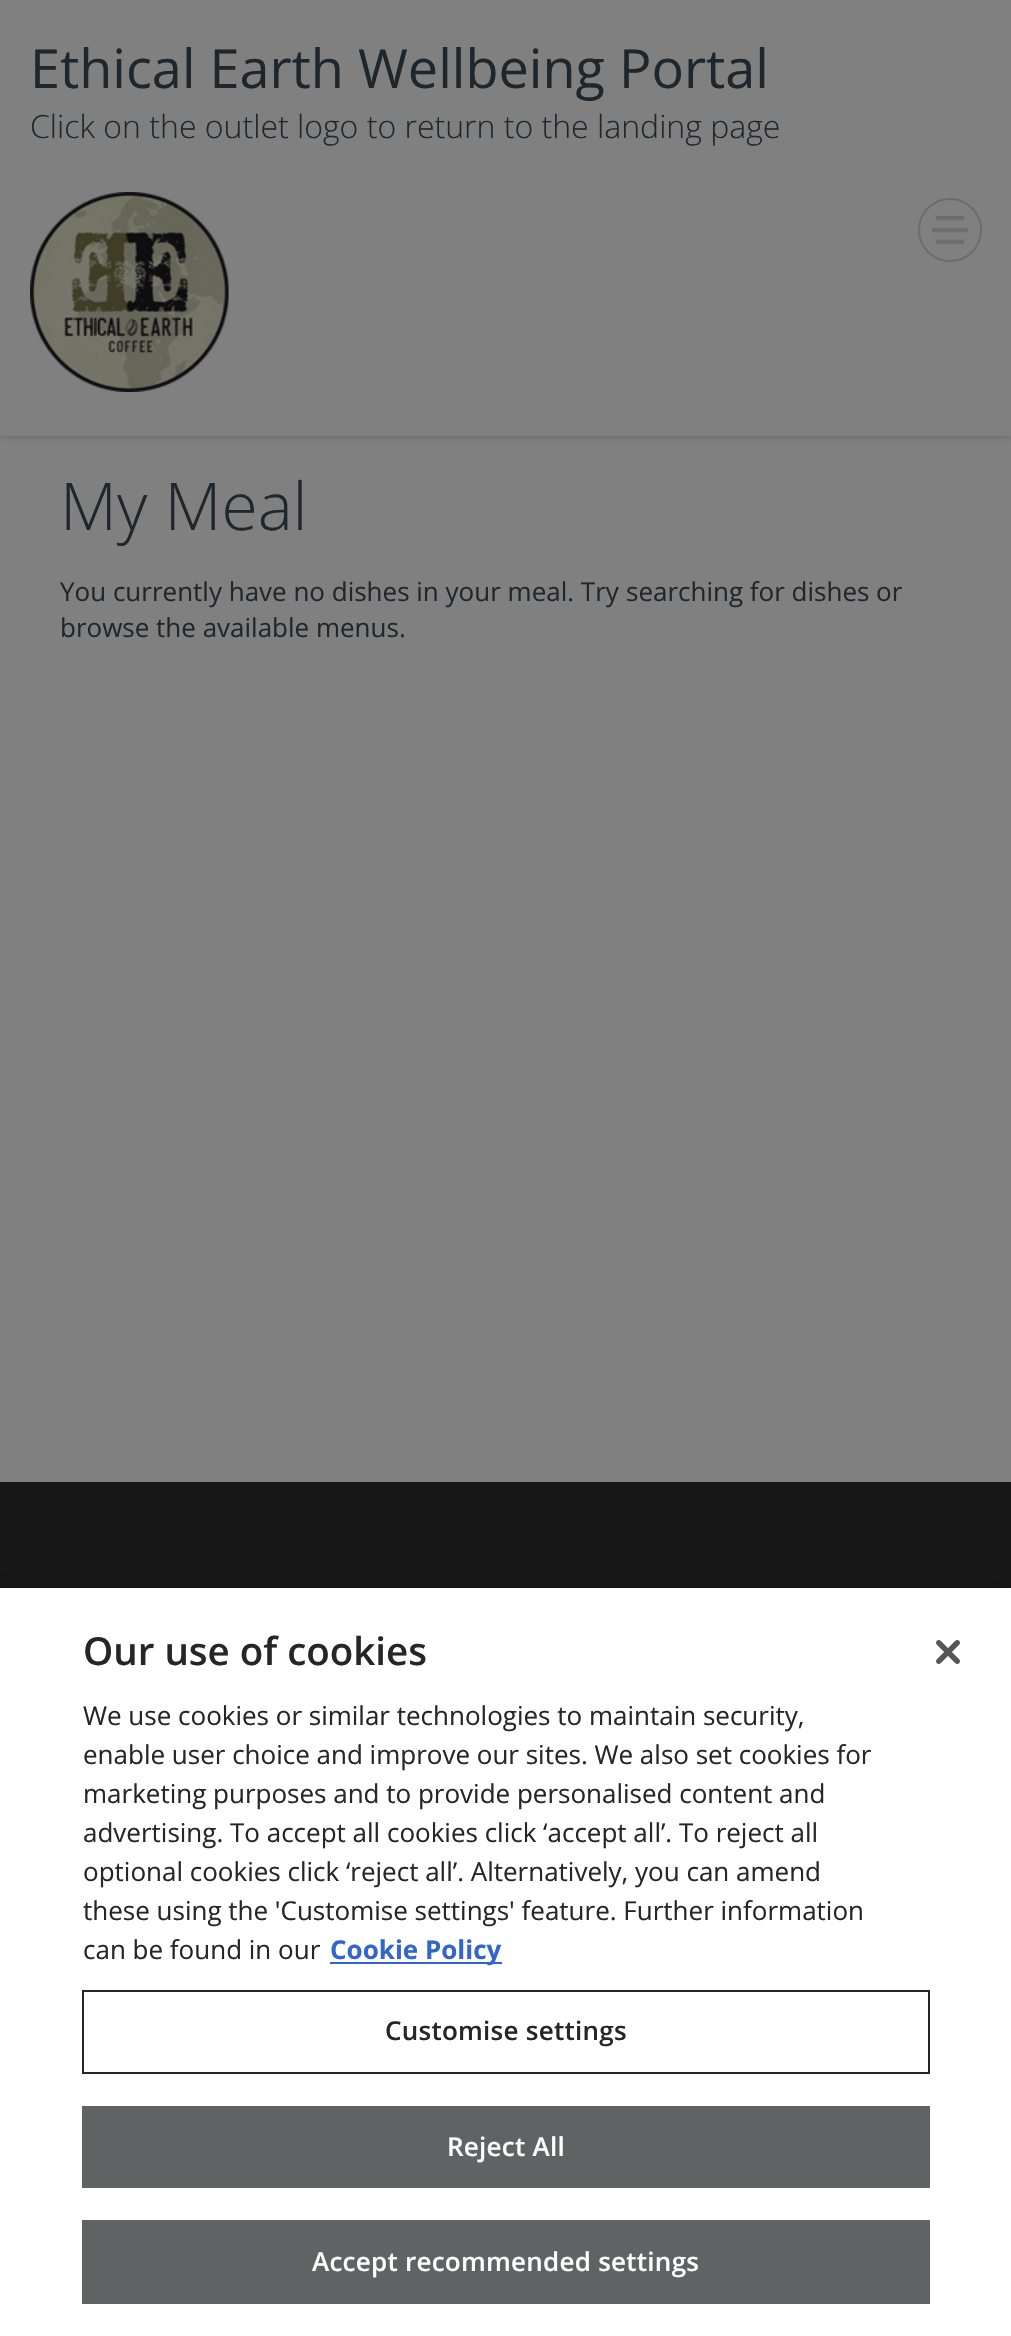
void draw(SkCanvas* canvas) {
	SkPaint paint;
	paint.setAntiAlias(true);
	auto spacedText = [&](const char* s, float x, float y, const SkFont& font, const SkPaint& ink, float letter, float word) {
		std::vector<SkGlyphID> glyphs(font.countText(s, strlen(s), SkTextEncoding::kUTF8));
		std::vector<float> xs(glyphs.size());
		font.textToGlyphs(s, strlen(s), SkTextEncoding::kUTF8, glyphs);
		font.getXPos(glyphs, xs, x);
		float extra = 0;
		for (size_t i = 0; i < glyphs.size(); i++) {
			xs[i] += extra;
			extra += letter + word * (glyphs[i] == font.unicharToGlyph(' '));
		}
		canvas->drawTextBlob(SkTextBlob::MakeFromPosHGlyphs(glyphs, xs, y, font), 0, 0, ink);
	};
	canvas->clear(0xff808080);
	canvas->save();
	canvas->clipRect(SkRect::MakeXYWH(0, 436, 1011, 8));
	paint.setColor(0xff6f6f6f);
	paint.setMaskFilter(SkMaskFilter::MakeBlur(kNormal_SkBlurStyle, 3));
	canvas->drawRect(SkRect::MakeXYWH(0, 2, 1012, 436), paint);
	paint.setMaskFilter(nullptr);
	canvas->restore();
	SkFont f1(fontMgr->matchFamilyStyle("Open Sans", SkFontStyle::Normal()), 54);
	f1.setSubpixel(true);
	paint.setColor(0xff1f272e);
	canvas->drawString("Ethical Earth Wellbeing Portal", 30, 88, f1, paint);
	SkFont f2(fontMgr->matchFamilyStyle("Open Sans", SkFontStyle(300, SkFontStyle::kNormal_Width, SkFontStyle::kUpright_Slant)), 32);
	f2.setSubpixel(true);
	canvas->drawString("Click on the outlet logo to return to the landing page", 30, 138, f2, paint);
	canvas->drawImageRect(SkImages::DeferredFromEncodedData(SkData::MakeFromFileName("img1.png")), SkRect::MakeXYWH(30, 192, 199, 200), SkSamplingOptions());
	canvas->drawImageRect(SkImages::DeferredFromEncodedData(SkData::MakeFromFileName("img2.png")), SkRect::MakeXYWH(932, 216, 36, 29), SkSamplingOptions());
	paint.setStroke(true);
	paint.setStrokeWidth(2);
	paint.setColor(0xff6c6c6c);
	canvas->drawCircle(950, 230, 31, paint);
	SkFont f3(fontMgr->matchFamilyStyle("Open Sans", SkFontStyle(300, SkFontStyle::kNormal_Width, SkFontStyle::kUpright_Slant)), 66);
	f3.setSubpixel(true);
	paint.setStroke(false);
	paint.setColor(0xff1f272e);
	canvas->drawString("My Meal", 60, 530, f3, paint);
	SkFont f4(fontMgr->matchFamilyStyle("Open Sans", SkFontStyle::Normal()), 26);
	f4.setSubpixel(true);
	canvas->drawString("You currently have no dishes in your meal. Try", 60, 601, f4, paint);
	canvas->drawString("searching for dishes", 626, 601, f4, paint);
	canvas->drawString("or", 876, 601, f4, paint);
	canvas->drawString("browse the available menus", 60, 637, f4, paint);
	canvas->drawString(".", 399, 637, f4, paint);
	paint.setColor(0xff191818);
	canvas->drawRect(SkRect::MakeXYWH(0, 1482, 1011, 106), paint);
	paint.setColor(0x33000000);
	paint.setMaskFilter(SkMaskFilter::MakeBlur(kNormal_SkBlurStyle, 18));
	canvas->drawRect(SkRect::MakeXYWH(0, 1588, 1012, 748), paint);
	paint.setMaskFilter(nullptr);
	paint.setColor(0xffffffff);
	canvas->drawRect(SkRect::MakeXYWH(0, 1588, 1011, 748), paint);
	SkFont f5(fontMgr->matchFamilyStyle("Open Sans", SkFontStyle(600, SkFontStyle::kNormal_Width, SkFontStyle::kUpright_Slant)), 38.5);
	f5.setSubpixel(true);
	paint.setColor(0xff262626);
	canvas->drawString("Our use of cookies", 83, 1665, f5, paint);
	canvas->drawString("We use cookies or similar technologies to maintain security,", 83, 1725, f4, paint);
	canvas->drawString("enable user choice and improve our sites. We also set cookies for", 83, 1764, f4, paint);
	canvas->drawString("marketing purposes and to provide personalised content and", 83, 1803, f4, paint);
	canvas->drawString("advertising. To accept all cookies click ‘accept all’. To reject all", 83, 1842, f4, paint);
	canvas->drawString("optional cookies click ‘reject all’. Alternatively, you can amend", 83, 1881, f4, paint);
	canvas->drawString("these using the 'Customise settings' feature. Further information", 83, 1920, f4, paint);
	canvas->drawString("can be found in our", 83, 1959, f4, paint);
	paint.setColor(0xff3366cc);
	canvas->drawRect(SkRect::MakeXYWH(330, 1962, 172, 2), paint);
	SkFont f6(fontMgr->matchFamilyStyle("Open Sans", SkFontStyle::Bold()), 26);
	f6.setSubpixel(true);
	canvas->drawString("Cookie Policy", 330, 1959, f6, paint);
	paint.setStroke(true);
	paint.setColor(0xff262626);
	canvas->drawRect(SkRect::MakeXYWH(83, 1991, 846, 82), paint);
	SkFont f7(fontMgr->matchFamilyStyle("Open Sans", SkFontStyle(600, SkFontStyle::kNormal_Width, SkFontStyle::kUpright_Slant)), 26);
	f7.setSubpixel(true);
	paint.setStroke(false);
	spacedText("Customise settings", 385, 2040, f7, paint, 0.25, 0);
	paint.setColor(0xff5f6363);
	canvas->drawRect(SkRect::MakeXYWH(82, 2106, 848, 82), paint);
	paint.setColor(0xffffffff);
	spacedText("Reject All", 447, 2156, f7, paint, 0.25, 0);
	paint.setColor(0xff5f6363);
	canvas->drawRect(SkRect::MakeXYWH(82, 2220, 848, 84), paint);
	paint.setColor(0xffffffff);
	spacedText("Accept recommended settings", 312, 2271, f7, paint, 0.25, 0);
	canvas->drawImageRect(SkImages::DeferredFromEncodedData(SkData::MakeFromFileName("img3.png")), SkRect::MakeXYWH(936, 1640, 24, 24), SkSamplingOptions());
}
